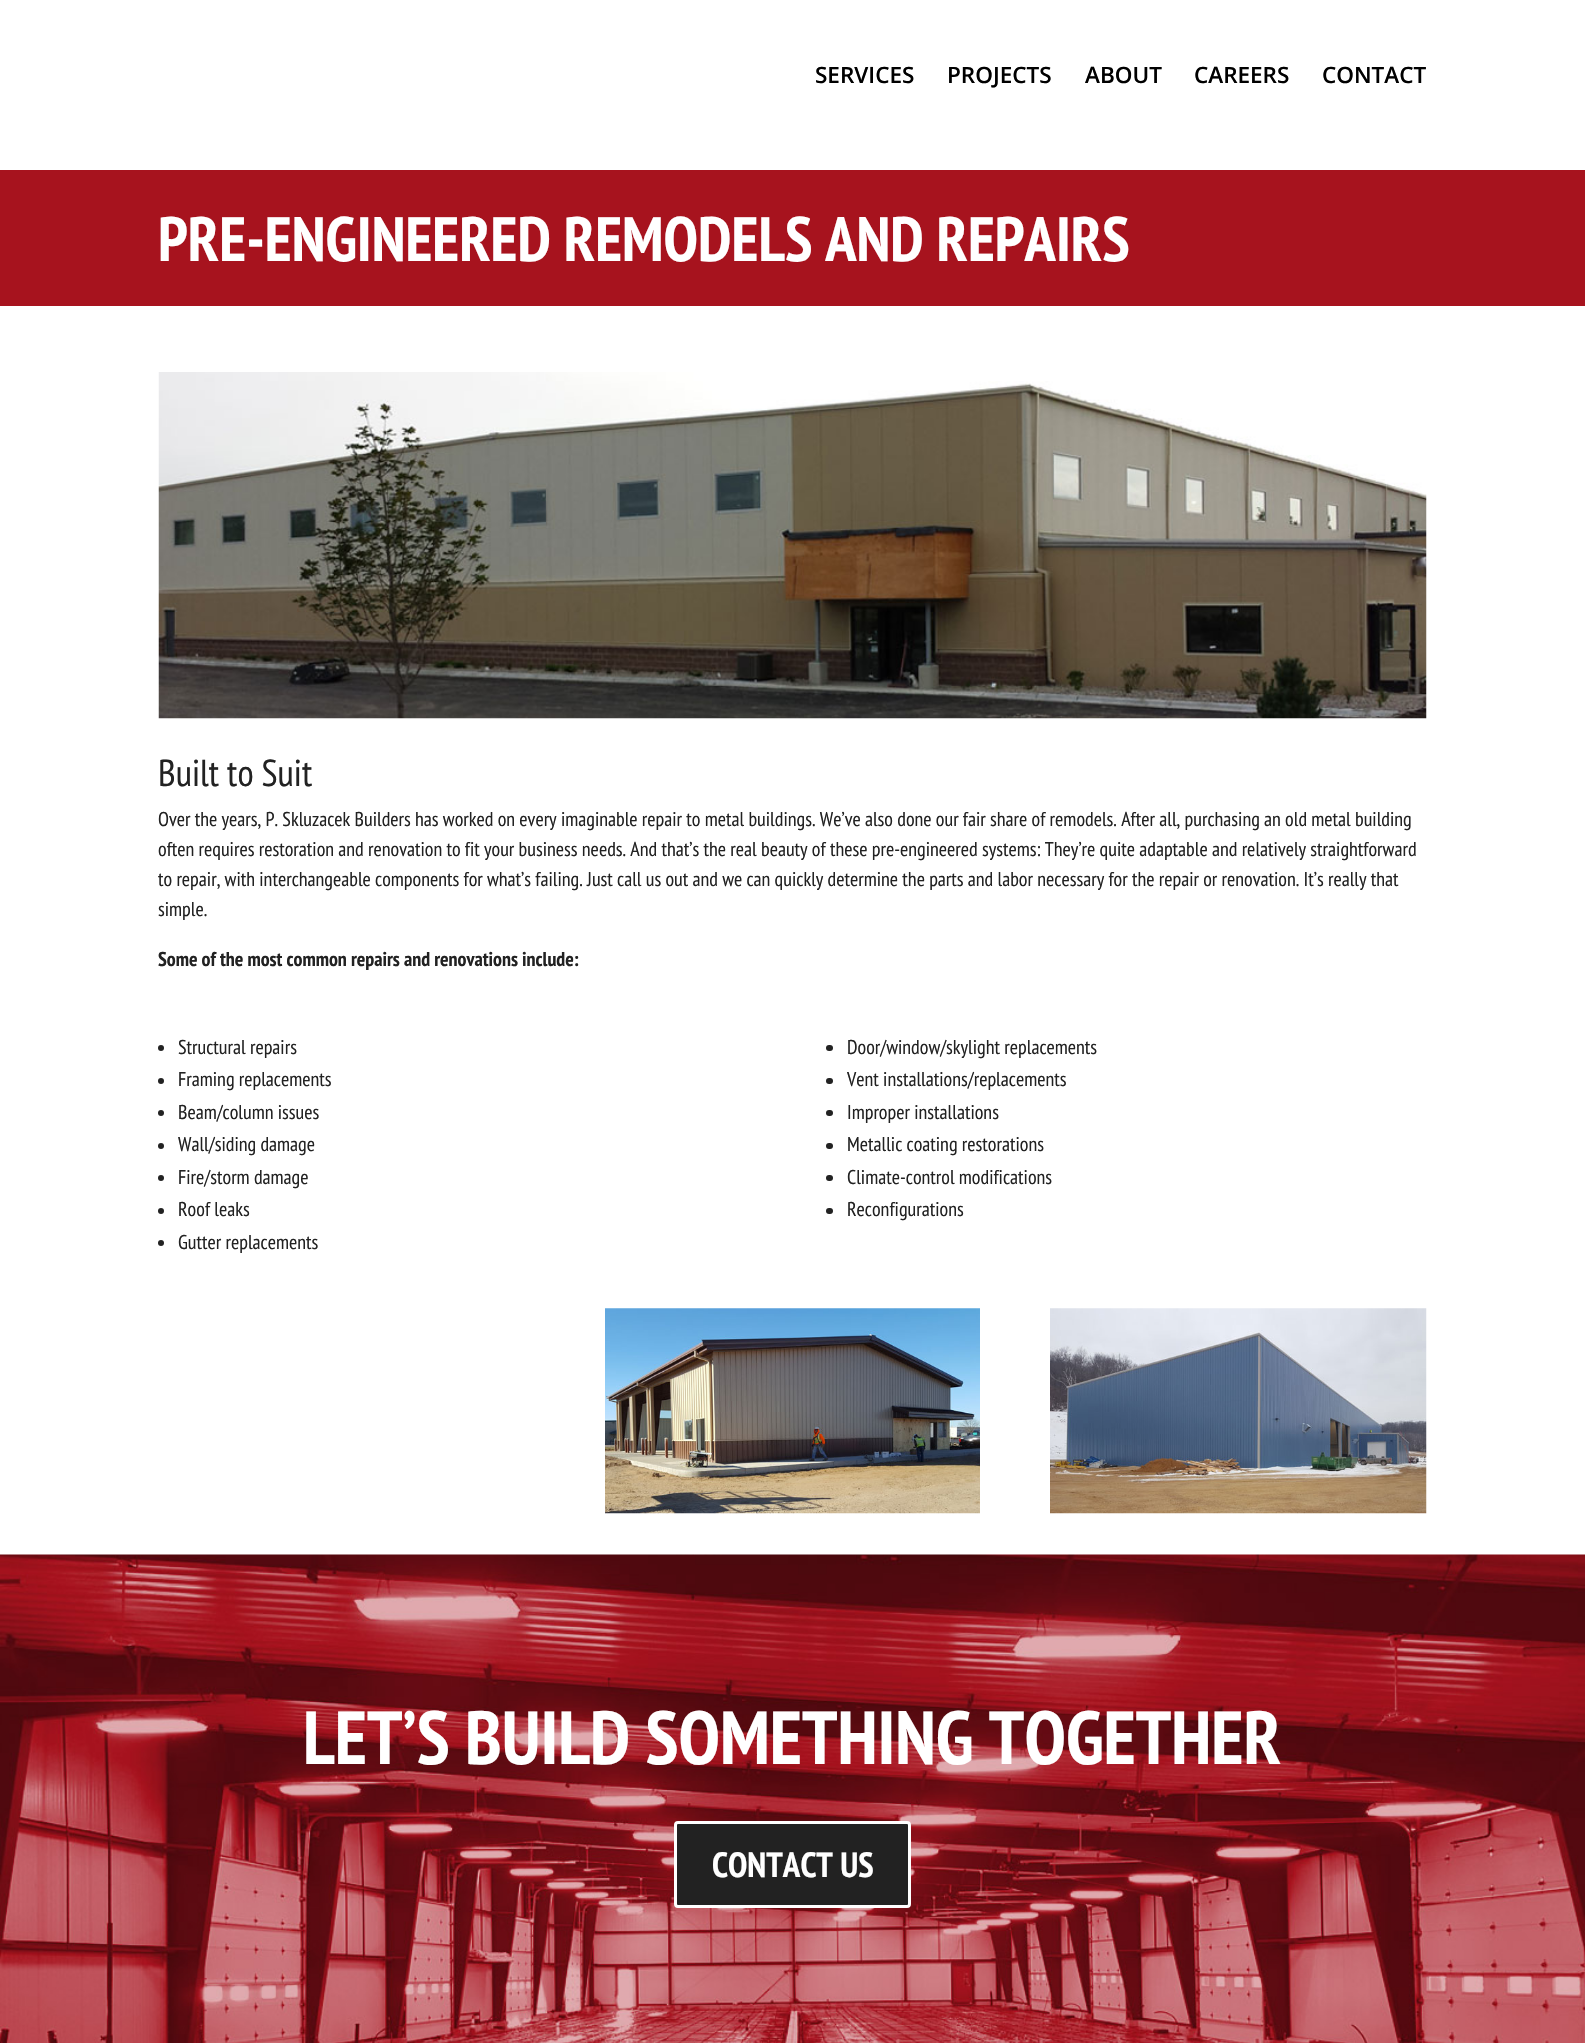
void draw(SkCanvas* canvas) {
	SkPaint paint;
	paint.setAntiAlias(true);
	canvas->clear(0xffffffff);
	SkFont f1(fontMgr->matchFamilyStyle("Open Sans", SkFontStyle(600, SkFontStyle::kNormal_Width, SkFontStyle::kUpright_Slant)), 22.5);
	f1.setSubpixel(true);
	paint.setColor(0xff000000);
	canvas->drawString("SERVICES", 815, 83, f1, paint);
	canvas->drawString("PROJECTS", 947, 83, f1, paint);
	canvas->drawString("ABOUT", 1085, 83, f1, paint);
	canvas->drawString("CAREERS", 1194, 83, f1, paint);
	canvas->drawString("CONTACT", 1322, 83, f1, paint);
	paint.setColor(0xffa7131e);
	canvas->drawRect(SkRect::MakeXYWH(0, 170, 1585, 136), paint);
	SkFont f2(fontMgr->matchFamilyStyle("PT Sans Narrow", SkFontStyle::Bold()), 62.5);
	f2.setSubpixel(true);
	paint.setColor(0xffffffff);
	canvas->drawString("PRE-ENGINEERED REMODELS AND REPAIRS", 158, 261, f2, paint);
	canvas->drawImageRect(SkImages::DeferredFromEncodedData(SkData::MakeFromFileName("img1.png")), SkRect::MakeXYWH(158, 372, 1269, 347), SkSamplingOptions());
	SkFont f3(fontMgr->matchFamilyStyle("PT Sans Narrow", SkFontStyle::Normal()), 37.5);
	f3.setSubpixel(true);
	paint.setColor(0xff222222);
	canvas->drawString("Built to Suit", 158, 786, f3, paint);
	SkFont f4(fontMgr->matchFamilyStyle("PT Sans Narrow", SkFontStyle::Normal()), 20);
	f4.setSubpixel(true);
	canvas->drawString("Over the years, P. Skluzacek Builders has worked on every imaginable repair to metal buildings. We’ve also done our fair share of remodels. After all, purchasing an old metal building", 158, 826, f4, paint);
	canvas->drawString("often requires restoration and renovation to fit your business needs. And that’s the real beauty of these pre-engineered systems: They’re quite adaptable and relatively straightforward", 158, 856, f4, paint);
	canvas->drawString("to repair, with interchangeable components for what’s failing. Just call us out and we can quickly determine the parts and labor necessary for the repair or renovation. It’s really that", 158, 886, f4, paint);
	canvas->drawString("simple.", 158, 916, f4, paint);
	SkFont f5(fontMgr->matchFamilyStyle("PT Sans Narrow", SkFontStyle::Bold()), 20);
	f5.setSubpixel(true);
	canvas->drawString("Some of the most common repairs and renovations include:", 158, 966, f5, paint);
	canvas->drawCircle(161, 1048, 3, paint);
	canvas->drawString("Structural repairs", 178, 1054, f4, paint);
	canvas->drawCircle(161, 1081, 3, paint);
	canvas->drawString("Framing replacements", 178, 1086, f4, paint);
	canvas->drawCircle(161, 1113, 3, paint);
	canvas->drawString("Beam/column issues", 178, 1119, f4, paint);
	canvas->drawCircle(161, 1146, 3, paint);
	canvas->drawString("Wall/siding damage", 178, 1151, f4, paint);
	canvas->drawCircle(161, 1178, 3, paint);
	canvas->drawString("Fire/storm damage", 178, 1184, f4, paint);
	canvas->drawCircle(161, 1211, 3, paint);
	canvas->drawString("Roof leaks", 178, 1216, f4, paint);
	canvas->drawCircle(161, 1243, 3, paint);
	canvas->drawString("Gutter replacements", 178, 1249, f4, paint);
	canvas->drawRoundRect(SkRect::MakeXYWH(826, 1045, 7, 6), 3, 3, paint);
	canvas->drawString("Door/window/skylight replacements", 847, 1054, f4, paint);
	canvas->drawRoundRect(SkRect::MakeXYWH(826, 1078, 7, 6), 3, 3, paint);
	canvas->drawString("Vent installations/replacements", 847, 1086, f4, paint);
	canvas->drawRoundRect(SkRect::MakeXYWH(826, 1110, 7, 6), 3, 3, paint);
	canvas->drawString("Improper installations", 847, 1119, f4, paint);
	canvas->drawRoundRect(SkRect::MakeXYWH(826, 1143, 7, 6), 3, 3, paint);
	canvas->drawString("Metallic coating restorations", 847, 1151, f4, paint);
	canvas->drawRoundRect(SkRect::MakeXYWH(826, 1175, 7, 6), 3, 3, paint);
	canvas->drawString("Climate-control modifications", 847, 1184, f4, paint);
	canvas->drawRoundRect(SkRect::MakeXYWH(826, 1208, 7, 6), 3, 3, paint);
	canvas->drawString("Reconfigurations", 847, 1216, f4, paint);
	canvas->drawImageRect(SkImages::DeferredFromEncodedData(SkData::MakeFromFileName("img2.png")), SkRect::MakeXYWH(605, 1308, 375, 206), SkSamplingOptions());
	canvas->drawImageRect(SkImages::DeferredFromEncodedData(SkData::MakeFromFileName("img3.png")), SkRect::MakeXYWH(1050, 1308, 377, 206), SkSamplingOptions());
	canvas->drawImageRect(SkImages::DeferredFromEncodedData(SkData::MakeFromFileName("img4.png")), SkRect::MakeXYWH(0, 1554, 1585, 489), SkSamplingOptions());
	SkFont f6(fontMgr->matchFamilyStyle("PT Sans Narrow", SkFontStyle::Bold()), 75);
	f6.setSubpixel(true);
	paint.setColor(0xffffffff);
	canvas->drawString("LET’S BUILD SOMETHING TOGETHER", 303, 1764, f6, paint);
	paint.setColor(0xff222222);
	canvas->drawRoundRect(SkRect::MakeXYWH(675.5, 1822.5, 234, 84), 2.5, 2.5, paint);
	paint.setStroke(true);
	paint.setStrokeWidth(3);
	paint.setColor(0xffffffff);
	canvas->drawRoundRect(SkRect::MakeXYWH(675.5, 1822.5, 234, 84), 2.5, 2.5, paint);
	SkFont f7(fontMgr->matchFamilyStyle("PT Sans Narrow", SkFontStyle::Bold()), 35);
	f7.setSubpixel(true);
	paint.setStroke(false);
	canvas->drawString("CONTACT US", 712, 1877, f7, paint);
}
